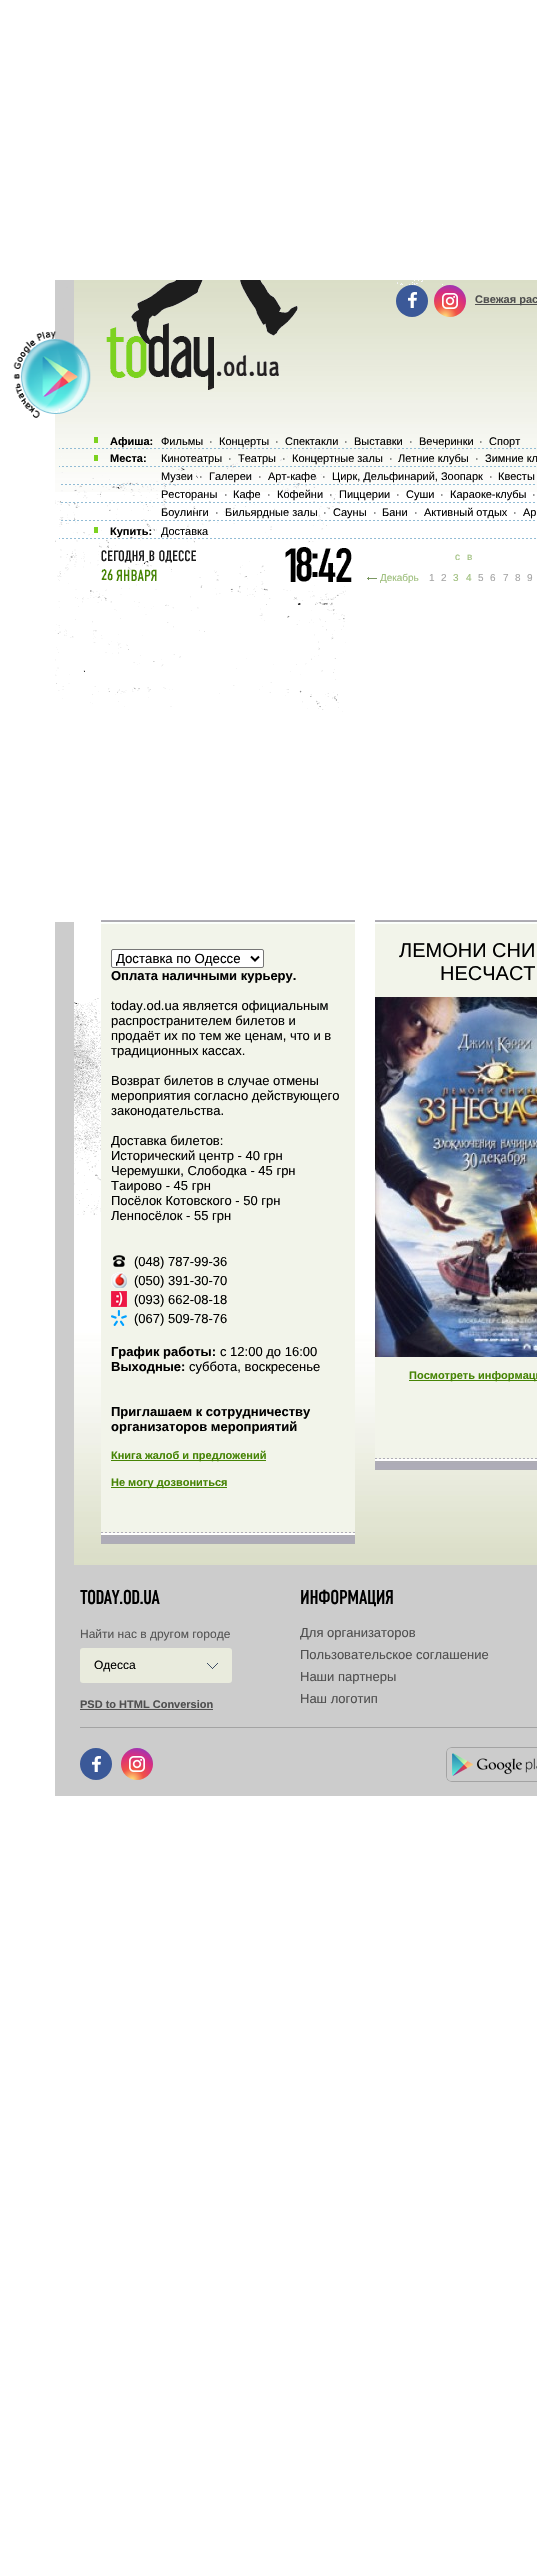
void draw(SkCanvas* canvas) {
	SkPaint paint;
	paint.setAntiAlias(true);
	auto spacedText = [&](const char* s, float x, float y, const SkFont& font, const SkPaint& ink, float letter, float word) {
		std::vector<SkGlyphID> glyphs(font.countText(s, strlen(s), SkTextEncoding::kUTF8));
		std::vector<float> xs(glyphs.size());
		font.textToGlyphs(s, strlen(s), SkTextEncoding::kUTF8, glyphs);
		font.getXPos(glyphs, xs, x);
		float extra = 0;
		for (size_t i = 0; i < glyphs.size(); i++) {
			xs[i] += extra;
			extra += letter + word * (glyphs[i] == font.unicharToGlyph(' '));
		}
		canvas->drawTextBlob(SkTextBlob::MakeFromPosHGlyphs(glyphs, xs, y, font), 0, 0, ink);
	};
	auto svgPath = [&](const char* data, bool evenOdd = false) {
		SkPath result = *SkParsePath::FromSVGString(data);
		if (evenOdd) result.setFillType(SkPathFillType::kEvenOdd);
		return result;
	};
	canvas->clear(0xffffffff);
	canvas->drawImageRect(SkImages::DeferredFromEncodedData(SkData::MakeFromFileName("img19.png")), SkRect::MakeXYWH(55, 280, 482, 212), SkSamplingOptions());
	canvas->drawImageRect(SkImages::DeferredFromEncodedData(SkData::MakeFromFileName("img20.png")), SkRect::MakeXYWH(55, 280, 388, 935), SkSamplingOptions());
	canvas->drawImageRect(SkImages::DeferredFromEncodedData(SkData::MakeFromFileName("img1.png")), SkRect::MakeXYWH(13, 331, 78, 87), SkSamplingOptions());
	paint.setColor(0xff3b5998);
	canvas->drawCircle(412, 301, 16, paint);
	canvas->drawImageRect(SkImages::DeferredFromEncodedData(SkData::MakeFromFileName("img2.png")), SkRect::MakeXYWH(408, 292, 9, 16), SkSamplingOptions());
	{
		const SkColor colors[] = {0xfffed373, 0xfff15245, 0xffd92e7f, 0xff9b36b7, 0xff515ecf};
		const float stops[] = {0.04, 0.3, 0.62, 0.85, 1};
		paint.setShader(SkGradientShader::MakeRadial({445, 317}, 39, colors, stops, 5, SkTileMode::kClamp));
		paint.setAlpha(255);
	}
	canvas->drawCircle(450, 301, 16, paint);
	canvas->drawImageRect(SkImages::DeferredFromEncodedData(SkData::MakeFromFileName("img3.png")), SkRect::MakeXYWH(442, 293, 16, 16), SkSamplingOptions());
	paint.setShader(nullptr);
	paint.setColor(0xff4f4f4f);
	canvas->drawRect(SkRect::MakeXYWH(475, 304, 62, 1), paint);
	SkFont f1(fontMgr->matchFamilyStyle("Liberation Sans", SkFontStyle::Bold()), 11);
	f1.setSubpixel(true);
	canvas->drawString("Свежая рас", 475, 303, f1, paint);
	canvas->drawImageRect(SkImages::DeferredFromEncodedData(SkData::MakeFromFileName("img4.png")), SkRect::MakeXYWH(59, 437, 477, 12), SkSamplingOptions());
	paint.setColor(0xff000000);
	canvas->drawString("Афиша:", 110, 445, f1, paint);
	SkFont f2(fontMgr->matchFamilyStyle("Liberation Sans", SkFontStyle::Normal()), 11);
	f2.setSubpixel(true);
	canvas->drawString("Фильмы", 161, 445, f2, paint);
	canvas->drawString("·", 209, 445, f2, paint);
	canvas->drawString("Концерты", 219, 445, f2, paint);
	canvas->drawString("·", 275, 445, f2, paint);
	canvas->drawString("Спектакли", 285, 445, f2, paint);
	canvas->drawString("·", 344, 445, f2, paint);
	canvas->drawString("Выставки", 354, 445, f2, paint);
	canvas->drawString("·", 409, 445, f2, paint);
	canvas->drawString("Вечеринки", 419, 445, f2, paint);
	canvas->drawString("·", 479, 445, f2, paint);
	canvas->drawString("Спорт", 489, 445, f2, paint);
	canvas->drawImageRect(SkImages::DeferredFromEncodedData(SkData::MakeFromFileName("img5.png")), SkRect::MakeXYWH(59, 455, 477, 12), SkSamplingOptions());
	canvas->drawString("Места:", 110, 462, f1, paint);
	canvas->drawString("Кинотеатры", 161, 462, f2, paint);
	canvas->drawString("·", 228, 462, f2, paint);
	canvas->drawString("Театры", 238, 462, f2, paint);
	canvas->drawString("·", 282, 462, f2, paint);
	canvas->drawString("Концертные залы", 292, 462, f2, paint);
	canvas->drawString("·", 389, 462, f2, paint);
	canvas->drawString("Летние клубы", 398, 462, f2, paint);
	canvas->drawString("·", 475, 462, f2, paint);
	canvas->drawString("Зимние кл", 485, 462, f2, paint);
	canvas->drawImageRect(SkImages::DeferredFromEncodedData(SkData::MakeFromFileName("img6.png")), SkRect::MakeXYWH(61, 484, 474, 1), SkSamplingOptions());
	canvas->drawString("Музеи", 161, 480, f2, paint);
	canvas->drawString("·", 199, 480, f2, paint);
	canvas->drawString("Галереи", 209, 480, f2, paint);
	canvas->drawString("·", 258, 480, f2, paint);
	canvas->drawString("Арт-кафе", 268, 480, f2, paint);
	canvas->drawString("·", 322, 480, f2, paint);
	canvas->drawString("Цирк, Дельфинарий, Зоопарк", 332, 480, f2, paint);
	canvas->drawString("·", 489, 480, f2, paint);
	canvas->drawString("Квесты", 498, 480, f2, paint);
	canvas->drawImageRect(SkImages::DeferredFromEncodedData(SkData::MakeFromFileName("img7.png")), SkRect::MakeXYWH(61, 502, 474, 1), SkSamplingOptions());
	canvas->drawString("Рестораны", 161, 498, f2, paint);
	canvas->drawString("·", 224, 498, f2, paint);
	canvas->drawString("Кафе", 233, 498, f2, paint);
	canvas->drawString("·", 267, 498, f2, paint);
	canvas->drawString("Кофейни", 277, 498, f2, paint);
	canvas->drawString("·", 329, 498, f2, paint);
	canvas->drawString("Пиццерии", 339, 498, f2, paint);
	canvas->drawString("·", 396, 498, f2, paint);
	canvas->drawString("Суши", 406, 498, f2, paint);
	canvas->drawString("·", 440, 498, f2, paint);
	canvas->drawString("Караоке-клубы", 450, 498, f2, paint);
	canvas->drawString("·", 532, 498, f2, paint);
	canvas->drawImageRect(SkImages::DeferredFromEncodedData(SkData::MakeFromFileName("img8.png")), SkRect::MakeXYWH(61, 520, 474, 1), SkSamplingOptions());
	canvas->drawString("Боулинги", 161, 516, f2, paint);
	canvas->drawString("·", 215, 516, f2, paint);
	canvas->drawString("Бильярдные залы", 225, 516, f2, paint);
	canvas->drawString("·", 323, 516, f2, paint);
	canvas->drawString("Сауны", 333, 516, f2, paint);
	canvas->drawString("·", 373, 516, f2, paint);
	canvas->drawString("Бани", 382, 516, f2, paint);
	canvas->drawString("·", 414, 516, f2, paint);
	canvas->drawString("Активный отдых", 424, 516, f2, paint);
	canvas->drawString("·", 513, 516, f2, paint);
	canvas->drawString("Ар", 523, 516, f2, paint);
	canvas->drawImageRect(SkImages::DeferredFromEncodedData(SkData::MakeFromFileName("img9.png")), SkRect::MakeXYWH(59, 527, 477, 12), SkSamplingOptions());
	canvas->drawString("Купить:", 110, 535, f1, paint);
	canvas->drawString("Доставка", 161, 535, f2, paint);
	canvas->drawImageRect(SkImages::DeferredFromEncodedData(SkData::MakeFromFileName("img10.png")), SkRect::MakeXYWH(101, 550, 95, 13), SkSamplingOptions());
	canvas->drawImageRect(SkImages::DeferredFromEncodedData(SkData::MakeFromFileName("img11.png")), SkRect::MakeXYWH(101, 569, 6, 11), SkSamplingOptions());
	canvas->drawImageRect(SkImages::DeferredFromEncodedData(SkData::MakeFromFileName("img12.png")), SkRect::MakeXYWH(107, 569, 6, 12), SkSamplingOptions());
	canvas->drawImageRect(SkImages::DeferredFromEncodedData(SkData::MakeFromFileName("img13.png")), SkRect::MakeXYWH(116, 569, 41, 12), SkSamplingOptions());
	canvas->drawImageRect(SkImages::DeferredFromEncodedData(SkData::MakeFromFileName("img14.png")), SkRect::MakeXYWH(285, 548, 11, 34), SkSamplingOptions());
	canvas->drawImageRect(SkImages::DeferredFromEncodedData(SkData::MakeFromFileName("img15.png")), SkRect::MakeXYWH(296, 547, 16, 35), SkSamplingOptions());
	canvas->drawImageRect(SkImages::DeferredFromEncodedData(SkData::MakeFromFileName("img16.png")), SkRect::MakeXYWH(312, 553, 6, 24), SkSamplingOptions());
	canvas->drawImageRect(SkImages::DeferredFromEncodedData(SkData::MakeFromFileName("img17.png")), SkRect::MakeXYWH(318, 548, 18, 34), SkSamplingOptions());
	canvas->drawImageRect(SkImages::DeferredFromEncodedData(SkData::MakeFromFileName("img18.png")), SkRect::MakeXYWH(336, 548, 16, 34), SkSamplingOptions());
	SkFont f3(fontMgr->matchFamilyStyle("Liberation Sans", SkFontStyle::Normal()), 10);
	f3.setSubpixel(true);
	paint.setColor(0xffa0c07f);
	canvas->drawString("с", 455, 560, f3, paint);
	canvas->drawString("в", 467, 560, f3, paint);
	paint.setColor(0xff7a9762);
	canvas->drawRect(SkRect::MakeXYWH(367, 578, 10, 1), paint);
	canvas->drawRect(SkRect::MakeXYWH(368, 577, 1, 3), paint);
	paint.setColor(0xffa0c07f);
	canvas->drawString("Декабрь", 380, 581, f3, paint);
	paint.setColor(0xffa5a5a5);
	canvas->drawString("1", 429, 581, f3, paint);
	canvas->drawString("2", 441, 581, f3, paint);
	paint.setColor(0xffa0c07f);
	canvas->drawString("3", 453, 581, f3, paint);
	canvas->drawString("4", 466, 581, f3, paint);
	paint.setColor(0xffa5a5a5);
	canvas->drawString("5", 478, 581, f3, paint);
	canvas->drawString("6", 490, 581, f3, paint);
	canvas->drawString("7", 503, 581, f3, paint);
	canvas->drawString("8", 515, 581, f3, paint);
	canvas->drawString("9", 527, 581, f3, paint);
	canvas->drawImageRect(SkImages::DeferredFromEncodedData(SkData::MakeFromFileName("img21.png")), SkRect::MakeXYWH(74, 1215, 463, 350), SkSamplingOptions());
	paint.setColor(0xffcccccc);
	canvas->drawRect(SkRect::MakeXYWH(55, 922, 19, 643), paint);
	canvas->drawImageRect(SkImages::DeferredFromEncodedData(SkData::MakeFromFileName("img22.png")), SkRect::MakeXYWH(101, 920, 254, 4), SkSamplingOptions());
	paint.setColor(0xfff2f4ea);
	canvas->drawRect(SkRect::MakeXYWH(101, 924, 254, 609), paint);
	canvas->drawImageRect(SkImages::DeferredFromEncodedData(SkData::MakeFromFileName("img23.png")), SkRect::MakeXYWH(101, 1532, 254, 1), SkSamplingOptions());
	paint.setColor(0xffffffff);
	canvas->drawRoundRect(SkRect::MakeXYWH(111.5, 949.5, 152, 18), 1.5, 1.5, paint);
	paint.setStroke(true);
	paint.setStrokeWidth(1);
	paint.setColor(0xff767676);
	canvas->drawRoundRect(SkRect::MakeXYWH(111.5, 949.5, 152, 18), 1.5, 1.5, paint);
	paint.setStrokeWidth(2);
	paint.setColor(0xff000000);
	canvas->drawPath(svgPath("M251 956.5L255 960.5L259 956.5"), paint);
	SkFont f4(fontMgr->matchFamilyStyle("Liberation Sans", SkFontStyle::Normal()), 13.25);
	f4.setSubpixel(true);
	paint.setStroke(false);
	canvas->drawString("Доставка по Одессе", 116, 963, f4, paint);
	SkFont f5(fontMgr->matchFamilyStyle("Liberation Sans", SkFontStyle::Bold()), 13);
	f5.setSubpixel(true);
	canvas->drawString("Оплата наличными курьеру.", 111, 980, f5, paint);
	SkFont f6(fontMgr->matchFamilyStyle("Liberation Sans", SkFontStyle::Normal()), 13);
	f6.setSubpixel(true);
	canvas->drawString("today.od.ua является официальным", 111, 1010, f6, paint);
	canvas->drawString("распространителем билетов и", 111, 1025, f6, paint);
	canvas->drawString("продаёт их по тем же ценам, что и в", 111, 1040, f6, paint);
	canvas->drawString("традиционных кассах.", 111, 1055, f6, paint);
	canvas->drawString("Возврат билетов в случае отмены", 111, 1085, f6, paint);
	canvas->drawString("мероприятия согласно действующего", 111, 1100, f6, paint);
	canvas->drawString("законодательства.", 111, 1115, f6, paint);
	canvas->drawString("Доставка билетов:", 111, 1145, f6, paint);
	canvas->drawString("Исторический центр - 40 грн", 111, 1160, f6, paint);
	canvas->drawString("Черемушки, Слободка - 45 грн", 111, 1175, f6, paint);
	canvas->drawString("Таирово - 45 грн", 111, 1190, f6, paint);
	canvas->drawString("Посёлок Котовского - 50 грн", 111, 1205, f6, paint);
	canvas->drawString("Ленпосёлок - 55 грн", 111, 1220, f6, paint);
	canvas->drawImageRect(SkImages::DeferredFromEncodedData(SkData::MakeFromFileName("img24.png")), SkRect::MakeXYWH(113, 1255, 12, 12), SkSamplingOptions());
	canvas->drawString("(048) 787-99-36", 134, 1266, f6, paint);
	canvas->drawImageRect(SkImages::DeferredFromEncodedData(SkData::MakeFromFileName("img25.png")), SkRect::MakeXYWH(111, 1272, 16, 16), SkSamplingOptions());
	canvas->drawString("(050) 391-30-70", 134, 1285, f6, paint);
	canvas->drawImageRect(SkImages::DeferredFromEncodedData(SkData::MakeFromFileName("img26.png")), SkRect::MakeXYWH(111, 1291, 16, 16), SkSamplingOptions());
	canvas->drawString("(093) 662-08-18", 134, 1304, f6, paint);
	canvas->drawImageRect(SkImages::DeferredFromEncodedData(SkData::MakeFromFileName("img27.png")), SkRect::MakeXYWH(111, 1310, 16, 16), SkSamplingOptions());
	canvas->drawString("(067) 509-78-76", 134, 1323, f6, paint);
	canvas->drawString("График работы:", 111, 1356, f5, paint);
	canvas->drawString("с 12:00 до 16:00", 220, 1356, f6, paint);
	canvas->drawString("Выходные:", 111, 1371, f5, paint);
	canvas->drawString("суббота, воскресенье", 189, 1371, f6, paint);
	canvas->drawString("Приглашаем к сотрудничеству", 111, 1416, f5, paint);
	canvas->drawString("организаторов мероприятий", 111, 1431, f5, paint);
	paint.setColor(0xff468405);
	canvas->drawRect(SkRect::MakeXYWH(111, 1460, 155, 1), paint);
	canvas->drawString("Книга жалоб и предложений", 111, 1459, f1, paint);
	canvas->drawRect(SkRect::MakeXYWH(111, 1487, 116, 1), paint);
	canvas->drawString("Не могу дозвониться", 111, 1486, f1, paint);
	canvas->drawImageRect(SkImages::DeferredFromEncodedData(SkData::MakeFromFileName("img28.png")), SkRect::MakeXYWH(101, 1533, 254, 11), SkSamplingOptions());
	canvas->drawImageRect(SkImages::DeferredFromEncodedData(SkData::MakeFromFileName("img29.png")), SkRect::MakeXYWH(375, 920, 162, 4), SkSamplingOptions());
	paint.setColor(0xfff2f4ea);
	canvas->drawRect(SkRect::MakeXYWH(375, 924, 162, 535), paint);
	canvas->drawImageRect(SkImages::DeferredFromEncodedData(SkData::MakeFromFileName("img30.png")), SkRect::MakeXYWH(375, 1458, 162, 1), SkSamplingOptions());
	SkFont f7(fontMgr->matchFamilyStyle("Liberation Sans", SkFontStyle::Normal()), 20);
	f7.setSubpixel(true);
	paint.setColor(0xff000000);
	canvas->drawString("ЛЕМОНИ СНИ", 399, 957, f7, paint);
	canvas->drawString("НЕСЧАСТ", 440, 980, f7, paint);
	canvas->drawImageRect(SkImages::DeferredFromEncodedData(SkData::MakeFromFileName("img31.png")), SkRect::MakeXYWH(375, 997, 162, 360), SkSamplingOptions());
	paint.setColor(0xff468405);
	canvas->drawRect(SkRect::MakeXYWH(409, 1380, 128, 1), paint);
	canvas->drawString("Посмотреть информаци", 409, 1379, f1, paint);
	canvas->drawImageRect(SkImages::DeferredFromEncodedData(SkData::MakeFromFileName("img32.png")), SkRect::MakeXYWH(375, 1459, 162, 11), SkSamplingOptions());
	paint.setColor(0xffcccccc);
	canvas->drawRect(SkRect::MakeXYWH(55, 1565, 482, 231), paint);
	SkFont f8(fontMgr->matchFamilyStyle("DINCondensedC", SkFontStyle::Normal()), 20);
	f8.setSubpixel(true);
	paint.setColor(0xff000000);
	spacedText("TODAY.OD.UA", 80, 1604, f8, paint, -0.75, 0);
	SkFont f9(fontMgr->matchFamilyStyle("Liberation Sans", SkFontStyle::Normal()), 12);
	f9.setSubpixel(true);
	paint.setColor(0xff555555);
	canvas->drawString("Найти нас в другом городе", 80, 1638, f9, paint);
	paint.setColor(0xffe9ebdd);
	canvas->drawRoundRect(SkRect::MakeXYWH(80, 1648, 152, 35), 3, 3, paint);
	paint.setColor(0xff000000);
	canvas->drawString("Одесса", 94, 1669, f9, paint);
	canvas->drawImageRect(SkImages::DeferredFromEncodedData(SkData::MakeFromFileName("img33.png")), SkRect::MakeXYWH(207, 1663, 11, 6), SkSamplingOptions());
	paint.setColor(0xff4f4f4f);
	canvas->drawString("PSD to HTML Conversion", 80, 1708, f1, paint);
	canvas->drawRect(SkRect::MakeXYWH(80, 1709, 133, 1), paint);
	paint.setColor(0xff000000);
	spacedText("ИНФОРМАЦИЯ", 300, 1604, f8, paint, -0.25, 0);
	paint.setColor(0xff4f4f4f);
	canvas->drawString("Для организаторов", 300, 1637, f6, paint);
	canvas->drawString("Пользовательское соглашение", 300, 1659, f6, paint);
	canvas->drawString("Наши партнеры", 300, 1681, f6, paint);
	canvas->drawString("Наш логотип", 300, 1703, f6, paint);
	paint.setColor(0xffa3a3a3);
	canvas->drawRect(SkRect::MakeXYWH(80, 1727, 457, 1), paint);
	paint.setColor(0xff3b5998);
	canvas->drawCircle(96, 1764, 16, paint);
	canvas->drawImageRect(SkImages::DeferredFromEncodedData(SkData::MakeFromFileName("img2.png")), SkRect::MakeXYWH(92, 1756, 9, 16), SkSamplingOptions());
	{
		const SkColor colors[] = {0xfffed373, 0xfff15245, 0xffd92e7f, 0xff9b36b7, 0xff515ecf};
		const float stops[] = {0.04, 0.3, 0.62, 0.85, 1};
		paint.setShader(SkGradientShader::MakeRadial({132, 1780}, 39, colors, stops, 5, SkTileMode::kClamp));
		paint.setAlpha(255);
	}
	canvas->drawCircle(137, 1764, 16, paint);
	canvas->drawImageRect(SkImages::DeferredFromEncodedData(SkData::MakeFromFileName("img3.png")), SkRect::MakeXYWH(129, 1756, 16, 16), SkSamplingOptions());
	canvas->drawImageRect(SkImages::DeferredFromEncodedData(SkData::MakeFromFileName("img34.png")), SkRect::MakeXYWH(446, 1747, 91, 35), SkSamplingOptions());
}
